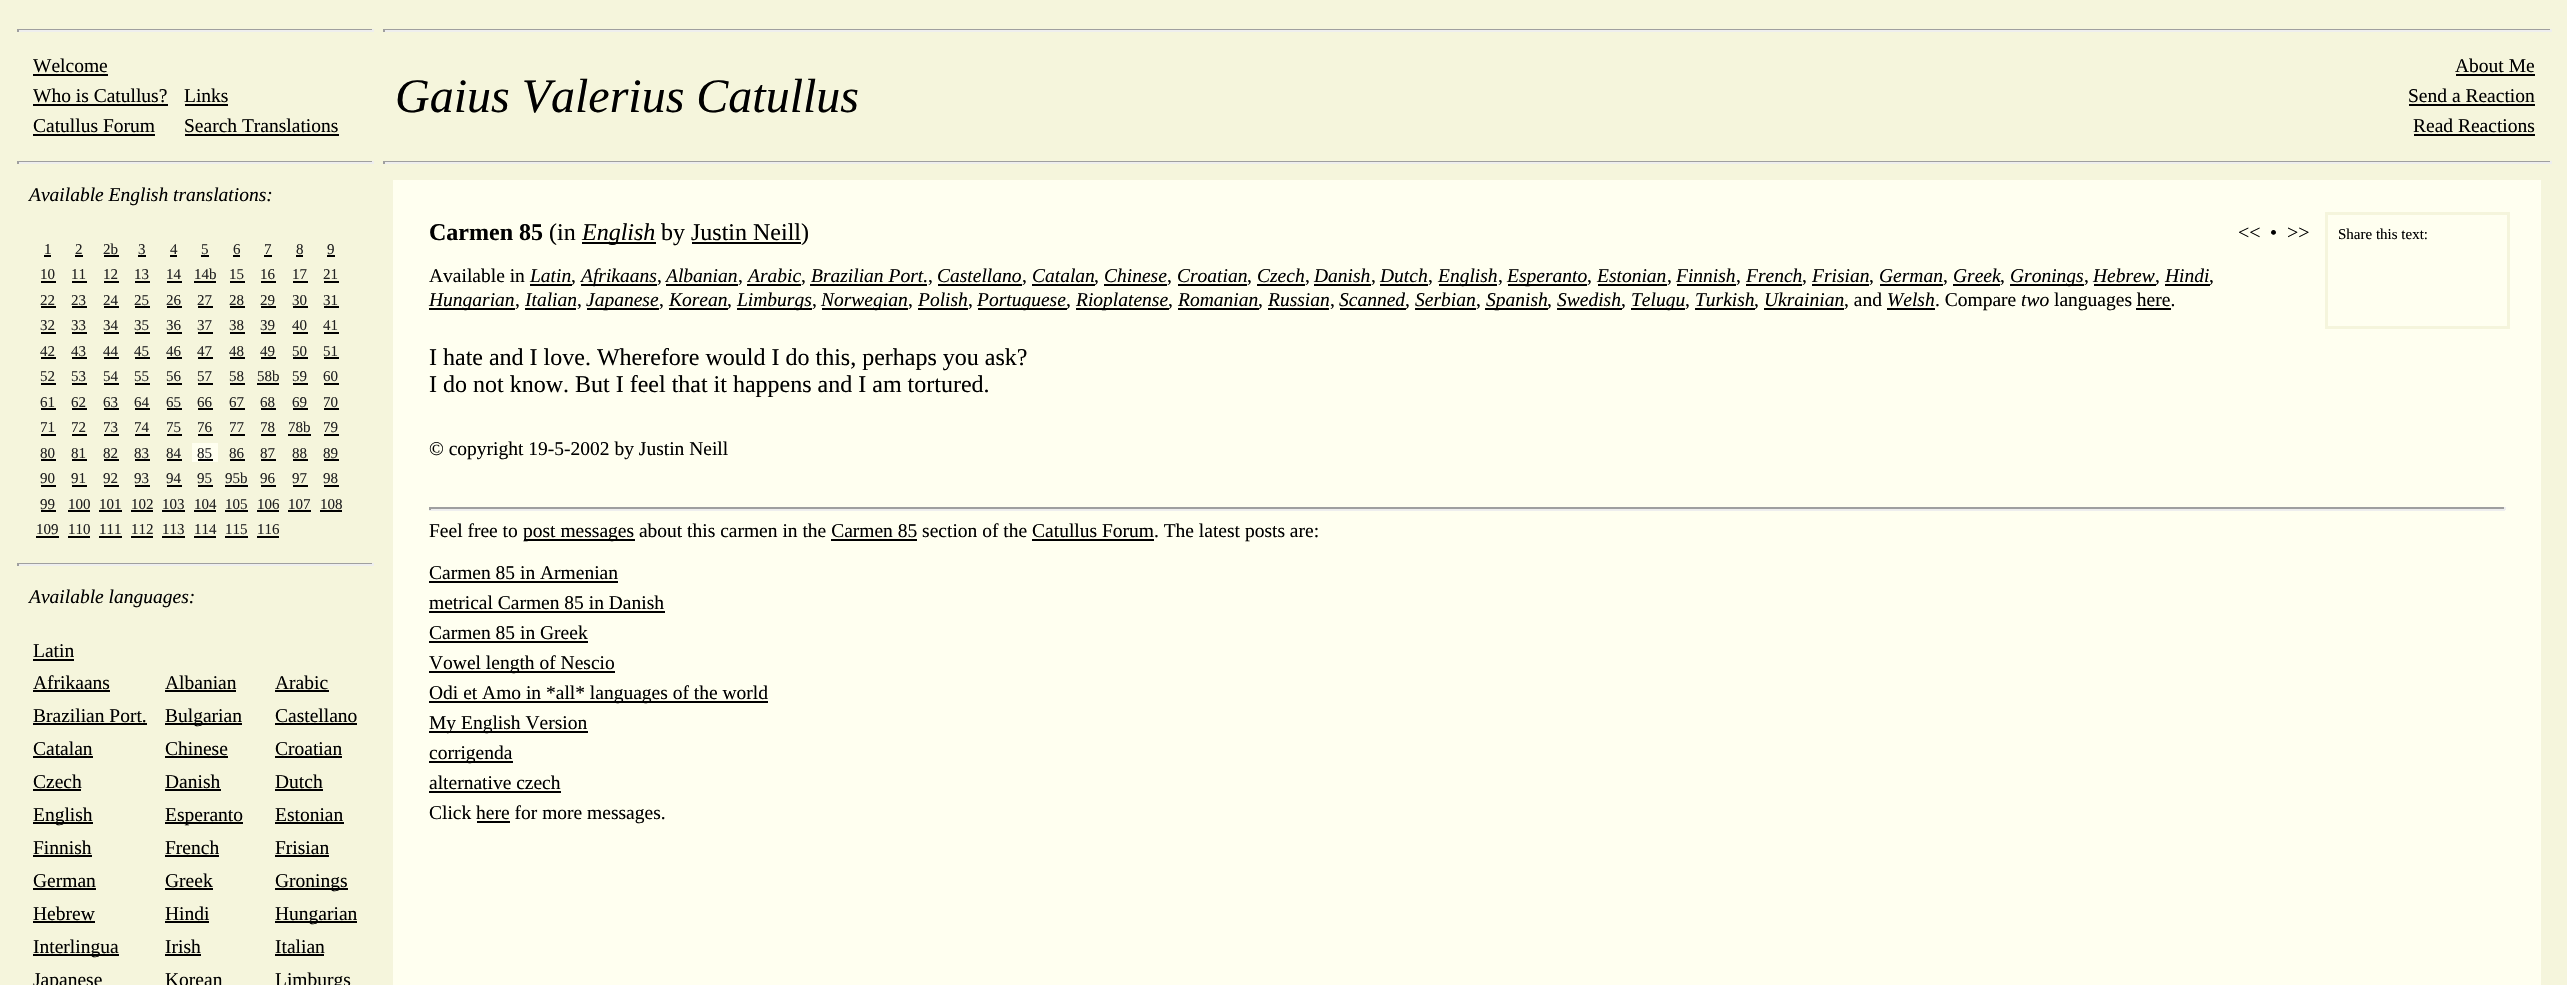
void draw(SkCanvas* canvas) {
	SkPaint paint;
	paint.setAntiAlias(true);
	canvas->clear(0xfff5f5dc);
	paint.setColor(0xff9f9f9f);
	canvas->drawRect(SkRect::MakeXYWH(17, 29, 357, 1), paint);
	paint.setColor(0xffeeeeee);
	canvas->drawRect(SkRect::MakeXYWH(372, 29, 2, 3), paint);
	canvas->drawRect(SkRect::MakeXYWH(17, 30, 357, 2), paint);
	paint.setColor(0xff9f9f9f);
	canvas->drawRect(SkRect::MakeXYWH(17, 29, 2, 3), paint);
	SkFont f1(fontMgr->matchFamilyStyle("Liberation Serif", SkFontStyle::Normal()), 19.5);
	f1.setSubpixel(true);
	paint.setColor(0xff000000);
	canvas->drawString("Welcome", 33, 72, f1, paint);
	canvas->drawRect(SkRect::MakeXYWH(33, 74, 75, 2), paint);
	canvas->drawString("Who is Catullus?", 33, 102, f1, paint);
	canvas->drawRect(SkRect::MakeXYWH(33, 104, 135, 2), paint);
	canvas->drawString("Links", 184, 102, f1, paint);
	canvas->drawRect(SkRect::MakeXYWH(185, 104, 43, 2), paint);
	canvas->drawString("Catullus Forum", 33, 132, f1, paint);
	canvas->drawRect(SkRect::MakeXYWH(33, 134, 122, 2), paint);
	canvas->drawString("Search Translations", 184, 132, f1, paint);
	canvas->drawRect(SkRect::MakeXYWH(185, 134, 154, 2), paint);
	paint.setColor(0xff9f9f9f);
	canvas->drawRect(SkRect::MakeXYWH(17, 161, 357, 1), paint);
	paint.setColor(0xffeeeeee);
	canvas->drawRect(SkRect::MakeXYWH(372, 161, 2, 3), paint);
	canvas->drawRect(SkRect::MakeXYWH(17, 162, 357, 2), paint);
	paint.setColor(0xff9f9f9f);
	canvas->drawRect(SkRect::MakeXYWH(17, 161, 2, 3), paint);
	SkFont f2(fontMgr->matchFamilyStyle("Liberation Serif", SkFontStyle::Italic()), 19.5);
	f2.setSubpixel(true);
	paint.setColor(0xff000000);
	canvas->drawString("Available English translations:", 29, 201, f2, paint);
	SkFont f3(fontMgr->matchFamilyStyle("Liberation Serif", SkFontStyle::Normal()), 15);
	f3.setSubpixel(true);
	paint.setColor(0xff222222);
	canvas->drawString("1", 44, 254, f3, paint);
	paint.setColor(0xff000000);
	canvas->drawRect(SkRect::MakeXYWH(44, 255, 7, 2), paint);
	paint.setColor(0xff222222);
	canvas->drawString("2", 75, 254, f3, paint);
	paint.setColor(0xff000000);
	canvas->drawRect(SkRect::MakeXYWH(75, 255, 8, 2), paint);
	paint.setColor(0xff222222);
	canvas->drawString("2b", 103, 254, f3, paint);
	paint.setColor(0xff000000);
	canvas->drawRect(SkRect::MakeXYWH(104, 255, 15, 2), paint);
	paint.setColor(0xff222222);
	canvas->drawString("3", 138, 254, f3, paint);
	paint.setColor(0xff000000);
	canvas->drawRect(SkRect::MakeXYWH(138, 255, 8, 2), paint);
	paint.setColor(0xff222222);
	canvas->drawString("4", 170, 254, f3, paint);
	paint.setColor(0xff000000);
	canvas->drawRect(SkRect::MakeXYWH(170, 255, 7, 2), paint);
	paint.setColor(0xff222222);
	canvas->drawString("5", 201, 254, f3, paint);
	paint.setColor(0xff000000);
	canvas->drawRect(SkRect::MakeXYWH(201, 255, 8, 2), paint);
	paint.setColor(0xff222222);
	canvas->drawString("6", 233, 254, f3, paint);
	paint.setColor(0xff000000);
	canvas->drawRect(SkRect::MakeXYWH(233, 255, 7, 2), paint);
	paint.setColor(0xff222222);
	canvas->drawString("7", 264, 254, f3, paint);
	paint.setColor(0xff000000);
	canvas->drawRect(SkRect::MakeXYWH(264, 255, 8, 2), paint);
	paint.setColor(0xff222222);
	canvas->drawString("8", 296, 254, f3, paint);
	paint.setColor(0xff000000);
	canvas->drawRect(SkRect::MakeXYWH(296, 255, 7, 2), paint);
	paint.setColor(0xff222222);
	canvas->drawString("9", 327, 254, f3, paint);
	paint.setColor(0xff000000);
	canvas->drawRect(SkRect::MakeXYWH(327, 255, 8, 2), paint);
	paint.setColor(0xff222222);
	canvas->drawString("10", 40, 279, f3, paint);
	paint.setColor(0xff000000);
	canvas->drawRect(SkRect::MakeXYWH(41, 281, 15, 2), paint);
	paint.setColor(0xff222222);
	canvas->drawString("11", 71, 279, f3, paint);
	paint.setColor(0xff000000);
	canvas->drawRect(SkRect::MakeXYWH(72, 281, 15, 2), paint);
	paint.setColor(0xff222222);
	canvas->drawString("12", 103, 279, f3, paint);
	paint.setColor(0xff000000);
	canvas->drawRect(SkRect::MakeXYWH(104, 281, 15, 2), paint);
	paint.setColor(0xff222222);
	canvas->drawString("13", 134, 279, f3, paint);
	paint.setColor(0xff000000);
	canvas->drawRect(SkRect::MakeXYWH(135, 281, 15, 2), paint);
	paint.setColor(0xff222222);
	canvas->drawString("14", 166, 279, f3, paint);
	paint.setColor(0xff000000);
	canvas->drawRect(SkRect::MakeXYWH(167, 281, 15, 2), paint);
	paint.setColor(0xff222222);
	canvas->drawString("14b", 194, 279, f3, paint);
	paint.setColor(0xff000000);
	canvas->drawRect(SkRect::MakeXYWH(194, 281, 22, 2), paint);
	paint.setColor(0xff222222);
	canvas->drawString("15", 229, 279, f3, paint);
	paint.setColor(0xff000000);
	canvas->drawRect(SkRect::MakeXYWH(230, 281, 15, 2), paint);
	paint.setColor(0xff222222);
	canvas->drawString("16", 260, 279, f3, paint);
	paint.setColor(0xff000000);
	canvas->drawRect(SkRect::MakeXYWH(261, 281, 15, 2), paint);
	paint.setColor(0xff222222);
	canvas->drawString("17", 292, 279, f3, paint);
	paint.setColor(0xff000000);
	canvas->drawRect(SkRect::MakeXYWH(293, 281, 15, 2), paint);
	paint.setColor(0xff222222);
	canvas->drawString("21", 323, 279, f3, paint);
	paint.setColor(0xff000000);
	canvas->drawRect(SkRect::MakeXYWH(324, 281, 15, 2), paint);
	paint.setColor(0xff222222);
	canvas->drawString("22", 40, 305, f3, paint);
	paint.setColor(0xff000000);
	canvas->drawRect(SkRect::MakeXYWH(41, 306, 15, 2), paint);
	paint.setColor(0xff222222);
	canvas->drawString("23", 71, 305, f3, paint);
	paint.setColor(0xff000000);
	canvas->drawRect(SkRect::MakeXYWH(72, 306, 15, 2), paint);
	paint.setColor(0xff222222);
	canvas->drawString("24", 103, 305, f3, paint);
	paint.setColor(0xff000000);
	canvas->drawRect(SkRect::MakeXYWH(104, 306, 15, 2), paint);
	paint.setColor(0xff222222);
	canvas->drawString("25", 134, 305, f3, paint);
	paint.setColor(0xff000000);
	canvas->drawRect(SkRect::MakeXYWH(135, 306, 15, 2), paint);
	paint.setColor(0xff222222);
	canvas->drawString("26", 166, 305, f3, paint);
	paint.setColor(0xff000000);
	canvas->drawRect(SkRect::MakeXYWH(167, 306, 15, 2), paint);
	paint.setColor(0xff222222);
	canvas->drawString("27", 197, 305, f3, paint);
	paint.setColor(0xff000000);
	canvas->drawRect(SkRect::MakeXYWH(198, 306, 15, 2), paint);
	paint.setColor(0xff222222);
	canvas->drawString("28", 229, 305, f3, paint);
	paint.setColor(0xff000000);
	canvas->drawRect(SkRect::MakeXYWH(230, 306, 15, 2), paint);
	paint.setColor(0xff222222);
	canvas->drawString("29", 260, 305, f3, paint);
	paint.setColor(0xff000000);
	canvas->drawRect(SkRect::MakeXYWH(261, 306, 15, 2), paint);
	paint.setColor(0xff222222);
	canvas->drawString("30", 292, 305, f3, paint);
	paint.setColor(0xff000000);
	canvas->drawRect(SkRect::MakeXYWH(293, 306, 15, 2), paint);
	paint.setColor(0xff222222);
	canvas->drawString("31", 323, 305, f3, paint);
	paint.setColor(0xff000000);
	canvas->drawRect(SkRect::MakeXYWH(324, 306, 15, 2), paint);
	paint.setColor(0xff222222);
	canvas->drawString("32", 40, 330, f3, paint);
	paint.setColor(0xff000000);
	canvas->drawRect(SkRect::MakeXYWH(41, 332, 15, 2), paint);
	paint.setColor(0xff222222);
	canvas->drawString("33", 71, 330, f3, paint);
	paint.setColor(0xff000000);
	canvas->drawRect(SkRect::MakeXYWH(72, 332, 15, 2), paint);
	paint.setColor(0xff222222);
	canvas->drawString("34", 103, 330, f3, paint);
	paint.setColor(0xff000000);
	canvas->drawRect(SkRect::MakeXYWH(104, 332, 15, 2), paint);
	paint.setColor(0xff222222);
	canvas->drawString("35", 134, 330, f3, paint);
	paint.setColor(0xff000000);
	canvas->drawRect(SkRect::MakeXYWH(135, 332, 15, 2), paint);
	paint.setColor(0xff222222);
	canvas->drawString("36", 166, 330, f3, paint);
	paint.setColor(0xff000000);
	canvas->drawRect(SkRect::MakeXYWH(167, 332, 15, 2), paint);
	paint.setColor(0xff222222);
	canvas->drawString("37", 197, 330, f3, paint);
	paint.setColor(0xff000000);
	canvas->drawRect(SkRect::MakeXYWH(198, 332, 15, 2), paint);
	paint.setColor(0xff222222);
	canvas->drawString("38", 229, 330, f3, paint);
	paint.setColor(0xff000000);
	canvas->drawRect(SkRect::MakeXYWH(230, 332, 15, 2), paint);
	paint.setColor(0xff222222);
	canvas->drawString("39", 260, 330, f3, paint);
	paint.setColor(0xff000000);
	canvas->drawRect(SkRect::MakeXYWH(261, 332, 15, 2), paint);
	paint.setColor(0xff222222);
	canvas->drawString("40", 292, 330, f3, paint);
	paint.setColor(0xff000000);
	canvas->drawRect(SkRect::MakeXYWH(293, 332, 15, 2), paint);
	paint.setColor(0xff222222);
	canvas->drawString("41", 323, 330, f3, paint);
	paint.setColor(0xff000000);
	canvas->drawRect(SkRect::MakeXYWH(324, 332, 15, 2), paint);
	paint.setColor(0xff222222);
	canvas->drawString("42", 40, 356, f3, paint);
	paint.setColor(0xff000000);
	canvas->drawRect(SkRect::MakeXYWH(41, 357, 15, 2), paint);
	paint.setColor(0xff222222);
	canvas->drawString("43", 71, 356, f3, paint);
	paint.setColor(0xff000000);
	canvas->drawRect(SkRect::MakeXYWH(72, 357, 15, 2), paint);
	paint.setColor(0xff222222);
	canvas->drawString("44", 103, 356, f3, paint);
	paint.setColor(0xff000000);
	canvas->drawRect(SkRect::MakeXYWH(104, 357, 15, 2), paint);
	paint.setColor(0xff222222);
	canvas->drawString("45", 134, 356, f3, paint);
	paint.setColor(0xff000000);
	canvas->drawRect(SkRect::MakeXYWH(135, 357, 15, 2), paint);
	paint.setColor(0xff222222);
	canvas->drawString("46", 166, 356, f3, paint);
	paint.setColor(0xff000000);
	canvas->drawRect(SkRect::MakeXYWH(167, 357, 15, 2), paint);
	paint.setColor(0xff222222);
	canvas->drawString("47", 197, 356, f3, paint);
	paint.setColor(0xff000000);
	canvas->drawRect(SkRect::MakeXYWH(198, 357, 15, 2), paint);
	paint.setColor(0xff222222);
	canvas->drawString("48", 229, 356, f3, paint);
	paint.setColor(0xff000000);
	canvas->drawRect(SkRect::MakeXYWH(230, 357, 15, 2), paint);
	paint.setColor(0xff222222);
	canvas->drawString("49", 260, 356, f3, paint);
	paint.setColor(0xff000000);
	canvas->drawRect(SkRect::MakeXYWH(261, 357, 15, 2), paint);
	paint.setColor(0xff222222);
	canvas->drawString("50", 292, 356, f3, paint);
	paint.setColor(0xff000000);
	canvas->drawRect(SkRect::MakeXYWH(293, 357, 15, 2), paint);
	paint.setColor(0xff222222);
	canvas->drawString("51", 323, 356, f3, paint);
	paint.setColor(0xff000000);
	canvas->drawRect(SkRect::MakeXYWH(324, 357, 15, 2), paint);
	paint.setColor(0xff222222);
	canvas->drawString("52", 40, 381, f3, paint);
	paint.setColor(0xff000000);
	canvas->drawRect(SkRect::MakeXYWH(41, 383, 15, 2), paint);
	paint.setColor(0xff222222);
	canvas->drawString("53", 71, 381, f3, paint);
	paint.setColor(0xff000000);
	canvas->drawRect(SkRect::MakeXYWH(72, 383, 15, 2), paint);
	paint.setColor(0xff222222);
	canvas->drawString("54", 103, 381, f3, paint);
	paint.setColor(0xff000000);
	canvas->drawRect(SkRect::MakeXYWH(104, 383, 15, 2), paint);
	paint.setColor(0xff222222);
	canvas->drawString("55", 134, 381, f3, paint);
	paint.setColor(0xff000000);
	canvas->drawRect(SkRect::MakeXYWH(135, 383, 15, 2), paint);
	paint.setColor(0xff222222);
	canvas->drawString("56", 166, 381, f3, paint);
	paint.setColor(0xff000000);
	canvas->drawRect(SkRect::MakeXYWH(167, 383, 15, 2), paint);
	paint.setColor(0xff222222);
	canvas->drawString("57", 197, 381, f3, paint);
	paint.setColor(0xff000000);
	canvas->drawRect(SkRect::MakeXYWH(198, 383, 15, 2), paint);
	paint.setColor(0xff222222);
	canvas->drawString("58", 229, 381, f3, paint);
	paint.setColor(0xff000000);
	canvas->drawRect(SkRect::MakeXYWH(230, 383, 15, 2), paint);
	paint.setColor(0xff222222);
	canvas->drawString("58b", 257, 381, f3, paint);
	paint.setColor(0xff000000);
	canvas->drawRect(SkRect::MakeXYWH(257, 383, 22, 2), paint);
	paint.setColor(0xff222222);
	canvas->drawString("59", 292, 381, f3, paint);
	paint.setColor(0xff000000);
	canvas->drawRect(SkRect::MakeXYWH(293, 383, 15, 2), paint);
	paint.setColor(0xff222222);
	canvas->drawString("60", 323, 381, f3, paint);
	paint.setColor(0xff000000);
	canvas->drawRect(SkRect::MakeXYWH(324, 383, 15, 2), paint);
	paint.setColor(0xff222222);
	canvas->drawString("61", 40, 407, f3, paint);
	paint.setColor(0xff000000);
	canvas->drawRect(SkRect::MakeXYWH(41, 408, 15, 2), paint);
	paint.setColor(0xff222222);
	canvas->drawString("62", 71, 407, f3, paint);
	paint.setColor(0xff000000);
	canvas->drawRect(SkRect::MakeXYWH(72, 408, 15, 2), paint);
	paint.setColor(0xff222222);
	canvas->drawString("63", 103, 407, f3, paint);
	paint.setColor(0xff000000);
	canvas->drawRect(SkRect::MakeXYWH(104, 408, 15, 2), paint);
	paint.setColor(0xff222222);
	canvas->drawString("64", 134, 407, f3, paint);
	paint.setColor(0xff000000);
	canvas->drawRect(SkRect::MakeXYWH(135, 408, 15, 2), paint);
	paint.setColor(0xff222222);
	canvas->drawString("65", 166, 407, f3, paint);
	paint.setColor(0xff000000);
	canvas->drawRect(SkRect::MakeXYWH(167, 408, 15, 2), paint);
	paint.setColor(0xff222222);
	canvas->drawString("66", 197, 407, f3, paint);
	paint.setColor(0xff000000);
	canvas->drawRect(SkRect::MakeXYWH(198, 408, 15, 2), paint);
	paint.setColor(0xff222222);
	canvas->drawString("67", 229, 407, f3, paint);
	paint.setColor(0xff000000);
	canvas->drawRect(SkRect::MakeXYWH(230, 408, 15, 2), paint);
	paint.setColor(0xff222222);
	canvas->drawString("68", 260, 407, f3, paint);
	paint.setColor(0xff000000);
	canvas->drawRect(SkRect::MakeXYWH(261, 408, 15, 2), paint);
	paint.setColor(0xff222222);
	canvas->drawString("69", 292, 407, f3, paint);
	paint.setColor(0xff000000);
	canvas->drawRect(SkRect::MakeXYWH(293, 408, 15, 2), paint);
	paint.setColor(0xff222222);
	canvas->drawString("70", 323, 407, f3, paint);
	paint.setColor(0xff000000);
	canvas->drawRect(SkRect::MakeXYWH(324, 408, 15, 2), paint);
	paint.setColor(0xff222222);
	canvas->drawString("71", 40, 432, f3, paint);
	paint.setColor(0xff000000);
	canvas->drawRect(SkRect::MakeXYWH(41, 434, 15, 2), paint);
	paint.setColor(0xff222222);
	canvas->drawString("72", 71, 432, f3, paint);
	paint.setColor(0xff000000);
	canvas->drawRect(SkRect::MakeXYWH(72, 434, 15, 2), paint);
	paint.setColor(0xff222222);
	canvas->drawString("73", 103, 432, f3, paint);
	paint.setColor(0xff000000);
	canvas->drawRect(SkRect::MakeXYWH(104, 434, 15, 2), paint);
	paint.setColor(0xff222222);
	canvas->drawString("74", 134, 432, f3, paint);
	paint.setColor(0xff000000);
	canvas->drawRect(SkRect::MakeXYWH(135, 434, 15, 2), paint);
	paint.setColor(0xff222222);
	canvas->drawString("75", 166, 432, f3, paint);
	paint.setColor(0xff000000);
	canvas->drawRect(SkRect::MakeXYWH(167, 434, 15, 2), paint);
	paint.setColor(0xff222222);
	canvas->drawString("76", 197, 432, f3, paint);
	paint.setColor(0xff000000);
	canvas->drawRect(SkRect::MakeXYWH(198, 434, 15, 2), paint);
	paint.setColor(0xff222222);
	canvas->drawString("77", 229, 432, f3, paint);
	paint.setColor(0xff000000);
	canvas->drawRect(SkRect::MakeXYWH(230, 434, 15, 2), paint);
	paint.setColor(0xff222222);
	canvas->drawString("78", 260, 432, f3, paint);
	paint.setColor(0xff000000);
	canvas->drawRect(SkRect::MakeXYWH(261, 434, 15, 2), paint);
	paint.setColor(0xff222222);
	canvas->drawString("78b", 288, 432, f3, paint);
	paint.setColor(0xff000000);
	canvas->drawRect(SkRect::MakeXYWH(288, 434, 23, 2), paint);
	paint.setColor(0xff222222);
	canvas->drawString("79", 323, 432, f3, paint);
	paint.setColor(0xff000000);
	canvas->drawRect(SkRect::MakeXYWH(324, 434, 15, 2), paint);
	paint.setColor(0xff222222);
	canvas->drawString("80", 40, 458, f3, paint);
	paint.setColor(0xff000000);
	canvas->drawRect(SkRect::MakeXYWH(41, 459, 15, 2), paint);
	paint.setColor(0xff222222);
	canvas->drawString("81", 71, 458, f3, paint);
	paint.setColor(0xff000000);
	canvas->drawRect(SkRect::MakeXYWH(72, 459, 15, 2), paint);
	paint.setColor(0xff222222);
	canvas->drawString("82", 103, 458, f3, paint);
	paint.setColor(0xff000000);
	canvas->drawRect(SkRect::MakeXYWH(104, 459, 15, 2), paint);
	paint.setColor(0xff222222);
	canvas->drawString("83", 134, 458, f3, paint);
	paint.setColor(0xff000000);
	canvas->drawRect(SkRect::MakeXYWH(135, 459, 15, 2), paint);
	paint.setColor(0xff222222);
	canvas->drawString("84", 166, 458, f3, paint);
	paint.setColor(0xff000000);
	canvas->drawRect(SkRect::MakeXYWH(167, 459, 15, 2), paint);
	paint.setColor(0xfffffff0);
	canvas->drawRect(SkRect::MakeXYWH(192, 443, 26, 19), paint);
	paint.setColor(0xff222222);
	canvas->drawString("85", 197, 458, f3, paint);
	paint.setColor(0xff000000);
	canvas->drawRect(SkRect::MakeXYWH(198, 459, 15, 2), paint);
	paint.setColor(0xff222222);
	canvas->drawString("86", 229, 458, f3, paint);
	paint.setColor(0xff000000);
	canvas->drawRect(SkRect::MakeXYWH(230, 459, 15, 2), paint);
	paint.setColor(0xff222222);
	canvas->drawString("87", 260, 458, f3, paint);
	paint.setColor(0xff000000);
	canvas->drawRect(SkRect::MakeXYWH(261, 459, 15, 2), paint);
	paint.setColor(0xff222222);
	canvas->drawString("88", 292, 458, f3, paint);
	paint.setColor(0xff000000);
	canvas->drawRect(SkRect::MakeXYWH(293, 459, 15, 2), paint);
	paint.setColor(0xff222222);
	canvas->drawString("89", 323, 458, f3, paint);
	paint.setColor(0xff000000);
	canvas->drawRect(SkRect::MakeXYWH(324, 459, 15, 2), paint);
	paint.setColor(0xff222222);
	canvas->drawString("90", 40, 483, f3, paint);
	paint.setColor(0xff000000);
	canvas->drawRect(SkRect::MakeXYWH(41, 485, 15, 2), paint);
	paint.setColor(0xff222222);
	canvas->drawString("91", 71, 483, f3, paint);
	paint.setColor(0xff000000);
	canvas->drawRect(SkRect::MakeXYWH(72, 485, 15, 2), paint);
	paint.setColor(0xff222222);
	canvas->drawString("92", 103, 483, f3, paint);
	paint.setColor(0xff000000);
	canvas->drawRect(SkRect::MakeXYWH(104, 485, 15, 2), paint);
	paint.setColor(0xff222222);
	canvas->drawString("93", 134, 483, f3, paint);
	paint.setColor(0xff000000);
	canvas->drawRect(SkRect::MakeXYWH(135, 485, 15, 2), paint);
	paint.setColor(0xff222222);
	canvas->drawString("94", 166, 483, f3, paint);
	paint.setColor(0xff000000);
	canvas->drawRect(SkRect::MakeXYWH(167, 485, 15, 2), paint);
	paint.setColor(0xff222222);
	canvas->drawString("95", 197, 483, f3, paint);
	paint.setColor(0xff000000);
	canvas->drawRect(SkRect::MakeXYWH(198, 485, 15, 2), paint);
	paint.setColor(0xff222222);
	canvas->drawString("95b", 225, 483, f3, paint);
	paint.setColor(0xff000000);
	canvas->drawRect(SkRect::MakeXYWH(225, 485, 23, 2), paint);
	paint.setColor(0xff222222);
	canvas->drawString("96", 260, 483, f3, paint);
	paint.setColor(0xff000000);
	canvas->drawRect(SkRect::MakeXYWH(261, 485, 15, 2), paint);
	paint.setColor(0xff222222);
	canvas->drawString("97", 292, 483, f3, paint);
	paint.setColor(0xff000000);
	canvas->drawRect(SkRect::MakeXYWH(293, 485, 15, 2), paint);
	paint.setColor(0xff222222);
	canvas->drawString("98", 323, 483, f3, paint);
	paint.setColor(0xff000000);
	canvas->drawRect(SkRect::MakeXYWH(324, 485, 15, 2), paint);
	paint.setColor(0xff222222);
	canvas->drawString("99", 40, 509, f3, paint);
	paint.setColor(0xff000000);
	canvas->drawRect(SkRect::MakeXYWH(41, 510, 15, 2), paint);
	paint.setColor(0xff222222);
	canvas->drawString("100", 68, 509, f3, paint);
	paint.setColor(0xff000000);
	canvas->drawRect(SkRect::MakeXYWH(68, 510, 22, 2), paint);
	paint.setColor(0xff222222);
	canvas->drawString("101", 99, 509, f3, paint);
	paint.setColor(0xff000000);
	canvas->drawRect(SkRect::MakeXYWH(99, 510, 23, 2), paint);
	paint.setColor(0xff222222);
	canvas->drawString("102", 131, 509, f3, paint);
	paint.setColor(0xff000000);
	canvas->drawRect(SkRect::MakeXYWH(131, 510, 22, 2), paint);
	paint.setColor(0xff222222);
	canvas->drawString("103", 162, 509, f3, paint);
	paint.setColor(0xff000000);
	canvas->drawRect(SkRect::MakeXYWH(162, 510, 23, 2), paint);
	paint.setColor(0xff222222);
	canvas->drawString("104", 194, 509, f3, paint);
	paint.setColor(0xff000000);
	canvas->drawRect(SkRect::MakeXYWH(194, 510, 22, 2), paint);
	paint.setColor(0xff222222);
	canvas->drawString("105", 225, 509, f3, paint);
	paint.setColor(0xff000000);
	canvas->drawRect(SkRect::MakeXYWH(225, 510, 23, 2), paint);
	paint.setColor(0xff222222);
	canvas->drawString("106", 257, 509, f3, paint);
	paint.setColor(0xff000000);
	canvas->drawRect(SkRect::MakeXYWH(257, 510, 22, 2), paint);
	paint.setColor(0xff222222);
	canvas->drawString("107", 288, 509, f3, paint);
	paint.setColor(0xff000000);
	canvas->drawRect(SkRect::MakeXYWH(288, 510, 23, 2), paint);
	paint.setColor(0xff222222);
	canvas->drawString("108", 320, 509, f3, paint);
	paint.setColor(0xff000000);
	canvas->drawRect(SkRect::MakeXYWH(320, 510, 22, 2), paint);
	paint.setColor(0xff222222);
	canvas->drawString("109", 36, 534, f3, paint);
	paint.setColor(0xff000000);
	canvas->drawRect(SkRect::MakeXYWH(36, 536, 23, 2), paint);
	paint.setColor(0xff222222);
	canvas->drawString("110", 68, 534, f3, paint);
	paint.setColor(0xff000000);
	canvas->drawRect(SkRect::MakeXYWH(68, 536, 22, 2), paint);
	paint.setColor(0xff222222);
	canvas->drawString("111", 99, 534, f3, paint);
	paint.setColor(0xff000000);
	canvas->drawRect(SkRect::MakeXYWH(99, 536, 23, 2), paint);
	paint.setColor(0xff222222);
	canvas->drawString("112", 131, 534, f3, paint);
	paint.setColor(0xff000000);
	canvas->drawRect(SkRect::MakeXYWH(131, 536, 22, 2), paint);
	paint.setColor(0xff222222);
	canvas->drawString("113", 162, 534, f3, paint);
	paint.setColor(0xff000000);
	canvas->drawRect(SkRect::MakeXYWH(162, 536, 23, 2), paint);
	paint.setColor(0xff222222);
	canvas->drawString("114", 194, 534, f3, paint);
	paint.setColor(0xff000000);
	canvas->drawRect(SkRect::MakeXYWH(194, 536, 22, 2), paint);
	paint.setColor(0xff222222);
	canvas->drawString("115", 225, 534, f3, paint);
	paint.setColor(0xff000000);
	canvas->drawRect(SkRect::MakeXYWH(225, 536, 23, 2), paint);
	paint.setColor(0xff222222);
	canvas->drawString("116", 257, 534, f3, paint);
	paint.setColor(0xff000000);
	canvas->drawRect(SkRect::MakeXYWH(257, 536, 22, 2), paint);
	paint.setColor(0xff9f9f9f);
	canvas->drawRect(SkRect::MakeXYWH(17, 563, 357, 1), paint);
	paint.setColor(0xffeeeeee);
	canvas->drawRect(SkRect::MakeXYWH(372, 563, 2, 3), paint);
	canvas->drawRect(SkRect::MakeXYWH(17, 564, 357, 2), paint);
	paint.setColor(0xff9f9f9f);
	canvas->drawRect(SkRect::MakeXYWH(17, 563, 2, 3), paint);
	paint.setColor(0xff000000);
	canvas->drawString("Available languages:", 29, 603, f2, paint);
	canvas->drawString("Latin", 33, 657, f1, paint);
	canvas->drawRect(SkRect::MakeXYWH(33, 659, 41, 2), paint);
	canvas->drawString("Afrikaans", 33, 689, f1, paint);
	canvas->drawRect(SkRect::MakeXYWH(33, 690, 77, 2), paint);
	canvas->drawString("Albanian", 165, 689, f1, paint);
	canvas->drawRect(SkRect::MakeXYWH(165, 690, 71, 2), paint);
	canvas->drawString("Arabic", 275, 689, f1, paint);
	canvas->drawRect(SkRect::MakeXYWH(275, 690, 54, 2), paint);
	canvas->drawString("Brazilian Port.", 33, 722, f1, paint);
	canvas->drawRect(SkRect::MakeXYWH(33, 723, 114, 2), paint);
	canvas->drawRect(SkRect::MakeXYWH(165, 723, 77, 2), paint);
	canvas->drawString("Bulgarian", 165, 722, f1, paint);
	canvas->drawString("Castellano", 275, 722, f1, paint);
	canvas->drawRect(SkRect::MakeXYWH(275, 723, 82, 2), paint);
	canvas->drawString("Catalan", 33, 755, f1, paint);
	canvas->drawRect(SkRect::MakeXYWH(33, 756, 60, 2), paint);
	canvas->drawString("Chinese", 165, 755, f1, paint);
	canvas->drawRect(SkRect::MakeXYWH(165, 756, 63, 2), paint);
	canvas->drawString("Croatian", 275, 755, f1, paint);
	canvas->drawRect(SkRect::MakeXYWH(275, 756, 67, 2), paint);
	canvas->drawString("Czech", 33, 788, f1, paint);
	canvas->drawRect(SkRect::MakeXYWH(33, 789, 48, 2), paint);
	canvas->drawString("Danish", 165, 788, f1, paint);
	canvas->drawRect(SkRect::MakeXYWH(165, 789, 56, 2), paint);
	canvas->drawString("Dutch", 275, 788, f1, paint);
	canvas->drawRect(SkRect::MakeXYWH(275, 789, 48, 2), paint);
	canvas->drawRect(SkRect::MakeXYWH(33, 822, 60, 2), paint);
	canvas->drawString("English", 33, 821, f1, paint);
	canvas->drawRect(SkRect::MakeXYWH(165, 822, 78, 2), paint);
	canvas->drawString("Esperanto", 165, 821, f1, paint);
	canvas->drawString("Estonian", 275, 821, f1, paint);
	canvas->drawRect(SkRect::MakeXYWH(275, 822, 69, 2), paint);
	canvas->drawString("Finnish", 33, 854, f1, paint);
	canvas->drawRect(SkRect::MakeXYWH(33, 855, 59, 2), paint);
	canvas->drawString("French", 165, 854, f1, paint);
	canvas->drawRect(SkRect::MakeXYWH(165, 855, 54, 2), paint);
	canvas->drawString("Frisian", 275, 854, f1, paint);
	canvas->drawRect(SkRect::MakeXYWH(275, 855, 54, 2), paint);
	canvas->drawString("German", 33, 887, f1, paint);
	canvas->drawRect(SkRect::MakeXYWH(33, 888, 63, 2), paint);
	canvas->drawString("Greek", 165, 887, f1, paint);
	canvas->drawRect(SkRect::MakeXYWH(165, 888, 48, 2), paint);
	canvas->drawRect(SkRect::MakeXYWH(275, 888, 73, 2), paint);
	canvas->drawString("Gronings", 275, 887, f1, paint);
	canvas->drawString("Hebrew", 33, 920, f1, paint);
	canvas->drawRect(SkRect::MakeXYWH(33, 921, 62, 2), paint);
	canvas->drawString("Hindi", 165, 920, f1, paint);
	canvas->drawRect(SkRect::MakeXYWH(165, 921, 44, 2), paint);
	canvas->drawRect(SkRect::MakeXYWH(275, 921, 82, 2), paint);
	canvas->drawString("Hungarian", 275, 920, f1, paint);
	canvas->drawRect(SkRect::MakeXYWH(33, 954, 86, 2), paint);
	canvas->drawString("Interlingua", 33, 953, f1, paint);
	canvas->drawString("Irish", 165, 953, f1, paint);
	canvas->drawRect(SkRect::MakeXYWH(165, 954, 36, 2), paint);
	canvas->drawString("Italian", 275, 953, f1, paint);
	canvas->drawRect(SkRect::MakeXYWH(275, 954, 49, 2), paint);
	canvas->drawString("Japanese", 33, 986, f1, paint);
	canvas->drawString("Korean", 165, 986, f1, paint);
	canvas->drawString("Limburgs", 275, 986, f1, paint);
	paint.setColor(0xff9f9f9f);
	canvas->drawRect(SkRect::MakeXYWH(383, 29, 2169, 1), paint);
	paint.setColor(0xffeeeeee);
	canvas->drawRect(SkRect::MakeXYWH(2550, 29, 2, 3), paint);
	canvas->drawRect(SkRect::MakeXYWH(383, 30, 2169, 2), paint);
	paint.setColor(0xff9f9f9f);
	canvas->drawRect(SkRect::MakeXYWH(383, 29, 2, 3), paint);
	SkFont f4(fontMgr->matchFamilyStyle("Liberation Serif", SkFontStyle::Italic()), 48);
	f4.setSubpixel(true);
	paint.setColor(0xff000000);
	canvas->drawString("Gaius Valerius Catullus", 395, 112, f4, paint);
	canvas->drawString("About Me", 2455, 72, f1, paint);
	canvas->drawRect(SkRect::MakeXYWH(2456, 74, 79, 2), paint);
	canvas->drawString("Send a Reaction", 2408, 102, f1, paint);
	canvas->drawRect(SkRect::MakeXYWH(2409, 104, 126, 2), paint);
	canvas->drawString("Read Reactions", 2413, 132, f1, paint);
	canvas->drawRect(SkRect::MakeXYWH(2414, 134, 121, 2), paint);
	paint.setColor(0xff9f9f9f);
	canvas->drawRect(SkRect::MakeXYWH(383, 161, 2169, 1), paint);
	paint.setColor(0xffeeeeee);
	canvas->drawRect(SkRect::MakeXYWH(2550, 161, 2, 3), paint);
	canvas->drawRect(SkRect::MakeXYWH(383, 162, 2169, 2), paint);
	paint.setColor(0xff9f9f9f);
	canvas->drawRect(SkRect::MakeXYWH(383, 161, 2, 3), paint);
	paint.setColor(0xfffffff0);
	canvas->drawRect(SkRect::MakeXYWH(393, 180, 2148, 805), paint);
	SkFont f5(fontMgr->matchFamilyStyle("Liberation Serif", SkFontStyle::Bold()), 24);
	f5.setSubpixel(true);
	paint.setColor(0xff000000);
	canvas->drawString("Carmen 85", 429, 240, f5, paint);
	SkFont f6(fontMgr->matchFamilyStyle("Liberation Serif", SkFontStyle::Normal()), 24);
	f6.setSubpixel(true);
	canvas->drawString("(in", 549, 240, f6, paint);
	canvas->drawRect(SkRect::MakeXYWH(582, 242, 74, 2), paint);
	SkFont f7(fontMgr->matchFamilyStyle("Liberation Serif", SkFontStyle::Italic()), 24);
	f7.setSubpixel(true);
	canvas->drawString("English", 582, 240, f7, paint);
	canvas->drawString("by Justin Neill)", 661, 240, f6, paint);
	canvas->drawRect(SkRect::MakeXYWH(692, 242, 109, 2), paint);
	SkFont f8(fontMgr->matchFamilyStyle("Liberation Serif", SkFontStyle::Normal()), 20);
	f8.setSubpixel(true);
	canvas->drawString("<<", 2238, 239, f8, paint);
	canvas->drawString("•", 2270, 239, f8, paint);
	canvas->drawString(">>", 2287, 239, f8, paint);
	canvas->drawString("Available in", 429, 282, f1, paint);
	canvas->drawString("Latin", 530, 282, f2, paint);
	canvas->drawRect(SkRect::MakeXYWH(530, 284, 42, 2), paint);
	canvas->drawString(",", 571, 282, f1, paint);
	canvas->drawRect(SkRect::MakeXYWH(581, 284, 76, 2), paint);
	canvas->drawString("Afrikaans", 581, 282, f2, paint);
	canvas->drawString(",", 657, 282, f1, paint);
	canvas->drawString("Albanian", 666, 282, f2, paint);
	canvas->drawString(",", 738, 282, f1, paint);
	canvas->drawRect(SkRect::MakeXYWH(666, 284, 72, 2), paint);
	canvas->drawString("Arabic", 748, 282, f2, paint);
	canvas->drawString(",", 801, 282, f1, paint);
	canvas->drawRect(SkRect::MakeXYWH(747, 284, 54, 2), paint);
	canvas->drawString("Brazilian Port.", 811, 282, f2, paint);
	canvas->drawString(",", 928, 282, f1, paint);
	canvas->drawRect(SkRect::MakeXYWH(810, 284, 117, 2), paint);
	canvas->drawString("Castellano", 937, 282, f2, paint);
	canvas->drawString(",", 1022, 282, f1, paint);
	canvas->drawRect(SkRect::MakeXYWH(938, 284, 84, 2), paint);
	canvas->drawString("Catalan", 1032, 282, f2, paint);
	canvas->drawString(",", 1094, 282, f1, paint);
	canvas->drawRect(SkRect::MakeXYWH(1032, 284, 63, 2), paint);
	canvas->drawString("Chinese", 1104, 282, f2, paint);
	canvas->drawString(",", 1167, 282, f1, paint);
	canvas->drawRect(SkRect::MakeXYWH(1104, 284, 63, 2), paint);
	canvas->drawString("Croatian", 1177, 282, f2, paint);
	canvas->drawString(",", 1247, 282, f1, paint);
	canvas->drawRect(SkRect::MakeXYWH(1178, 284, 69, 2), paint);
	canvas->drawString("Czech", 1257, 282, f2, paint);
	canvas->drawString(",", 1305, 282, f1, paint);
	canvas->drawRect(SkRect::MakeXYWH(1257, 284, 48, 2), paint);
	canvas->drawString("Danish", 1314, 282, f2, paint);
	canvas->drawString(",", 1371, 282, f1, paint);
	canvas->drawRect(SkRect::MakeXYWH(1314, 284, 57, 2), paint);
	canvas->drawString("Dutch", 1380, 282, f2, paint);
	canvas->drawString(",", 1428, 282, f1, paint);
	canvas->drawRect(SkRect::MakeXYWH(1380, 284, 48, 2), paint);
	canvas->drawRect(SkRect::MakeXYWH(1439, 284, 58, 2), paint);
	canvas->drawString("English", 1438, 282, f2, paint);
	canvas->drawString(",", 1498, 282, f1, paint);
	canvas->drawRect(SkRect::MakeXYWH(1508, 284, 79, 2), paint);
	canvas->drawString("Esperanto", 1507, 282, f2, paint);
	canvas->drawString(",", 1587, 282, f1, paint);
	canvas->drawString("Estonian", 1597, 282, f2, paint);
	canvas->drawString(",", 1667, 282, f1, paint);
	canvas->drawRect(SkRect::MakeXYWH(1598, 284, 69, 2), paint);
	canvas->drawString("Finnish", 1676, 282, f2, paint);
	canvas->drawString(",", 1736, 282, f1, paint);
	canvas->drawRect(SkRect::MakeXYWH(1677, 284, 59, 2), paint);
	canvas->drawString("French", 1746, 282, f2, paint);
	canvas->drawString(",", 1802, 282, f1, paint);
	canvas->drawRect(SkRect::MakeXYWH(1746, 284, 56, 2), paint);
	canvas->drawString("Frisian", 1812, 282, f2, paint);
	canvas->drawString(",", 1869, 282, f1, paint);
	canvas->drawRect(SkRect::MakeXYWH(1812, 284, 57, 2), paint);
	canvas->drawString("German", 1879, 282, f2, paint);
	canvas->drawString(",", 1943, 282, f1, paint);
	canvas->drawRect(SkRect::MakeXYWH(1880, 284, 63, 2), paint);
	canvas->drawString("Greek", 1953, 282, f2, paint);
	canvas->drawString(",", 2000, 282, f1, paint);
	canvas->drawRect(SkRect::MakeXYWH(1953, 284, 47, 2), paint);
	canvas->drawRect(SkRect::MakeXYWH(2010, 284, 74, 2), paint);
	canvas->drawString("Gronings", 2010, 282, f2, paint);
	canvas->drawString(",", 2084, 282, f1, paint);
	canvas->drawString("Hebrew", 2093, 282, f2, paint);
	canvas->drawRect(SkRect::MakeXYWH(2094, 284, 62, 2), paint);
	canvas->drawString(",", 2155, 282, f1, paint);
	canvas->drawString("Hindi", 2165, 282, f2, paint);
	canvas->drawString(",", 2209, 282, f1, paint);
	canvas->drawRect(SkRect::MakeXYWH(2165, 284, 45, 2), paint);
	canvas->drawRect(SkRect::MakeXYWH(429, 308, 86, 2), paint);
	canvas->drawString("Hungarian", 429, 306, f2, paint);
	canvas->drawString(",", 515, 306, f1, paint);
	canvas->drawString("Italian", 525, 306, f2, paint);
	canvas->drawString(",", 577, 306, f1, paint);
	canvas->drawRect(SkRect::MakeXYWH(525, 308, 51, 2), paint);
	canvas->drawRect(SkRect::MakeXYWH(587, 308, 72, 2), paint);
	canvas->drawString("Japanese", 586, 306, f2, paint);
	canvas->drawString(",", 659, 306, f1, paint);
	canvas->drawString("Korean", 669, 306, f2, paint);
	canvas->drawRect(SkRect::MakeXYWH(669, 308, 59, 2), paint);
	canvas->drawString(",", 727, 306, f1, paint);
	canvas->drawRect(SkRect::MakeXYWH(737, 308, 75, 2), paint);
	canvas->drawString("Limburgs", 737, 306, f2, paint);
	canvas->drawString(",", 812, 306, f1, paint);
	canvas->drawRect(SkRect::MakeXYWH(822, 308, 86, 2), paint);
	canvas->drawString("Norwegian", 821, 306, f2, paint);
	canvas->drawString(",", 908, 306, f1, paint);
	canvas->drawString("Polish", 918, 306, f2, paint);
	canvas->drawString(",", 968, 306, f1, paint);
	canvas->drawRect(SkRect::MakeXYWH(918, 308, 50, 2), paint);
	canvas->drawRect(SkRect::MakeXYWH(978, 308, 89, 2), paint);
	canvas->drawString("Portuguese", 977, 306, f2, paint);
	canvas->drawString(",", 1066, 306, f1, paint);
	canvas->drawRect(SkRect::MakeXYWH(1076, 308, 93, 2), paint);
	canvas->drawString("Rioplatense", 1076, 306, f2, paint);
	canvas->drawString(",", 1168, 306, f1, paint);
	canvas->drawString("Romanian", 1178, 306, f2, paint);
	canvas->drawRect(SkRect::MakeXYWH(1178, 308, 81, 2), paint);
	canvas->drawString(",", 1258, 306, f1, paint);
	canvas->drawString("Russian", 1268, 306, f2, paint);
	canvas->drawString(",", 1330, 306, f1, paint);
	canvas->drawRect(SkRect::MakeXYWH(1268, 308, 61, 2), paint);
	canvas->drawString("Scanned", 1339, 306, f2, paint);
	canvas->drawString(",", 1405, 306, f1, paint);
	canvas->drawRect(SkRect::MakeXYWH(1340, 308, 66, 2), paint);
	canvas->drawString("Serbian", 1415, 306, f2, paint);
	canvas->drawString(",", 1476, 306, f1, paint);
	canvas->drawRect(SkRect::MakeXYWH(1415, 308, 61, 2), paint);
	canvas->drawRect(SkRect::MakeXYWH(1485, 308, 63, 2), paint);
	canvas->drawString("Spanish", 1486, 306, f2, paint);
	canvas->drawString(",", 1547, 306, f1, paint);
	canvas->drawString("Swedish", 1557, 306, f2, paint);
	canvas->drawRect(SkRect::MakeXYWH(1557, 308, 65, 2), paint);
	canvas->drawString(",", 1621, 306, f1, paint);
	canvas->drawRect(SkRect::MakeXYWH(1631, 308, 54, 2), paint);
	canvas->drawString("Telugu", 1631, 306, f2, paint);
	canvas->drawString(",", 1685, 306, f1, paint);
	canvas->drawString("Turkish", 1695, 306, f2, paint);
	canvas->drawRect(SkRect::MakeXYWH(1695, 308, 60, 2), paint);
	canvas->drawString(",", 1754, 306, f1, paint);
	canvas->drawRect(SkRect::MakeXYWH(1764, 308, 80, 2), paint);
	canvas->drawString("Ukrainian", 1764, 306, f2, paint);
	canvas->drawString(", and", 1844, 306, f1, paint);
	canvas->drawString("Welsh", 1887, 306, f2, paint);
	canvas->drawString(". Compare", 1935, 306, f1, paint);
	canvas->drawRect(SkRect::MakeXYWH(1887, 308, 48, 2), paint);
	canvas->drawString("two", 2021, 306, f2, paint);
	canvas->drawString("languages here.", 2054, 306, f1, paint);
	canvas->drawRect(SkRect::MakeXYWH(2136, 308, 35, 2), paint);
	canvas->drawString("I hate and I love. Wherefore would I do this, perhaps you ask?", 429, 365, f6, paint);
	canvas->drawString("I do not know. But I feel that it happens and I am tortured.", 429, 392, f6, paint);
	canvas->drawString("© copyright 19-5-2002 by Justin Neill", 429, 455, f1, paint);
	paint.setColor(0xfff5f5dc);
	canvas->drawRect(SkRect::MakeXYWH(2325, 212, 185, 3), paint);
	canvas->drawRect(SkRect::MakeXYWH(2507, 212, 3, 117), paint);
	canvas->drawRect(SkRect::MakeXYWH(2325, 326, 185, 3), paint);
	canvas->drawRect(SkRect::MakeXYWH(2325, 212, 3, 117), paint);
	paint.setColor(0xff000000);
	canvas->drawString("Share this text:", 2338, 239, f3, paint);
	paint.setColor(0xff9f9f9f);
	canvas->drawRect(SkRect::MakeXYWH(429, 507, 2076, 2), paint);
	paint.setColor(0xffeeeeee);
	canvas->drawRect(SkRect::MakeXYWH(2504, 507, 2, 3), paint);
	canvas->drawRect(SkRect::MakeXYWH(429, 509, 2076, 2), paint);
	paint.setColor(0xff9f9f9f);
	canvas->drawRect(SkRect::MakeXYWH(429, 507, 2, 3), paint);
	paint.setColor(0xff000000);
	canvas->drawString("Feel free to", 429, 537, f1, paint);
	canvas->drawRect(SkRect::MakeXYWH(524, 539, 111, 2), paint);
	canvas->drawString("post messages about this carmen in the Carmen 85 section of the Catullus Forum. The latest posts are:", 523, 537, f1, paint);
	canvas->drawRect(SkRect::MakeXYWH(831, 539, 86, 2), paint);
	canvas->drawRect(SkRect::MakeXYWH(1032, 539, 122, 2), paint);
	canvas->drawString("Carmen 85 in Armenian", 429, 579, f1, paint);
	canvas->drawRect(SkRect::MakeXYWH(429, 581, 189, 2), paint);
	canvas->drawString("metrical Carmen 85 in Danish", 429, 609, f1, paint);
	canvas->drawRect(SkRect::MakeXYWH(429, 611, 236, 2), paint);
	canvas->drawString("Carmen 85 in Greek", 429, 639, f1, paint);
	canvas->drawRect(SkRect::MakeXYWH(429, 641, 159, 2), paint);
	canvas->drawRect(SkRect::MakeXYWH(429, 671, 186, 2), paint);
	canvas->drawString("Vowel length of Nescio", 429, 669, f1, paint);
	canvas->drawRect(SkRect::MakeXYWH(429, 701, 339, 2), paint);
	canvas->drawString("Odi et Amo in *all* languages of the world", 429, 699, f1, paint);
	canvas->drawRect(SkRect::MakeXYWH(429, 731, 159, 2), paint);
	canvas->drawString("My English Version", 429, 729, f1, paint);
	canvas->drawRect(SkRect::MakeXYWH(429, 761, 84, 2), paint);
	canvas->drawString("corrigenda", 429, 759, f1, paint);
	canvas->drawString("alternative czech", 429, 789, f1, paint);
	canvas->drawRect(SkRect::MakeXYWH(429, 791, 132, 2), paint);
	canvas->drawString("Click here for more messages.", 429, 819, f1, paint);
	canvas->drawRect(SkRect::MakeXYWH(477, 821, 33, 2), paint);
}
